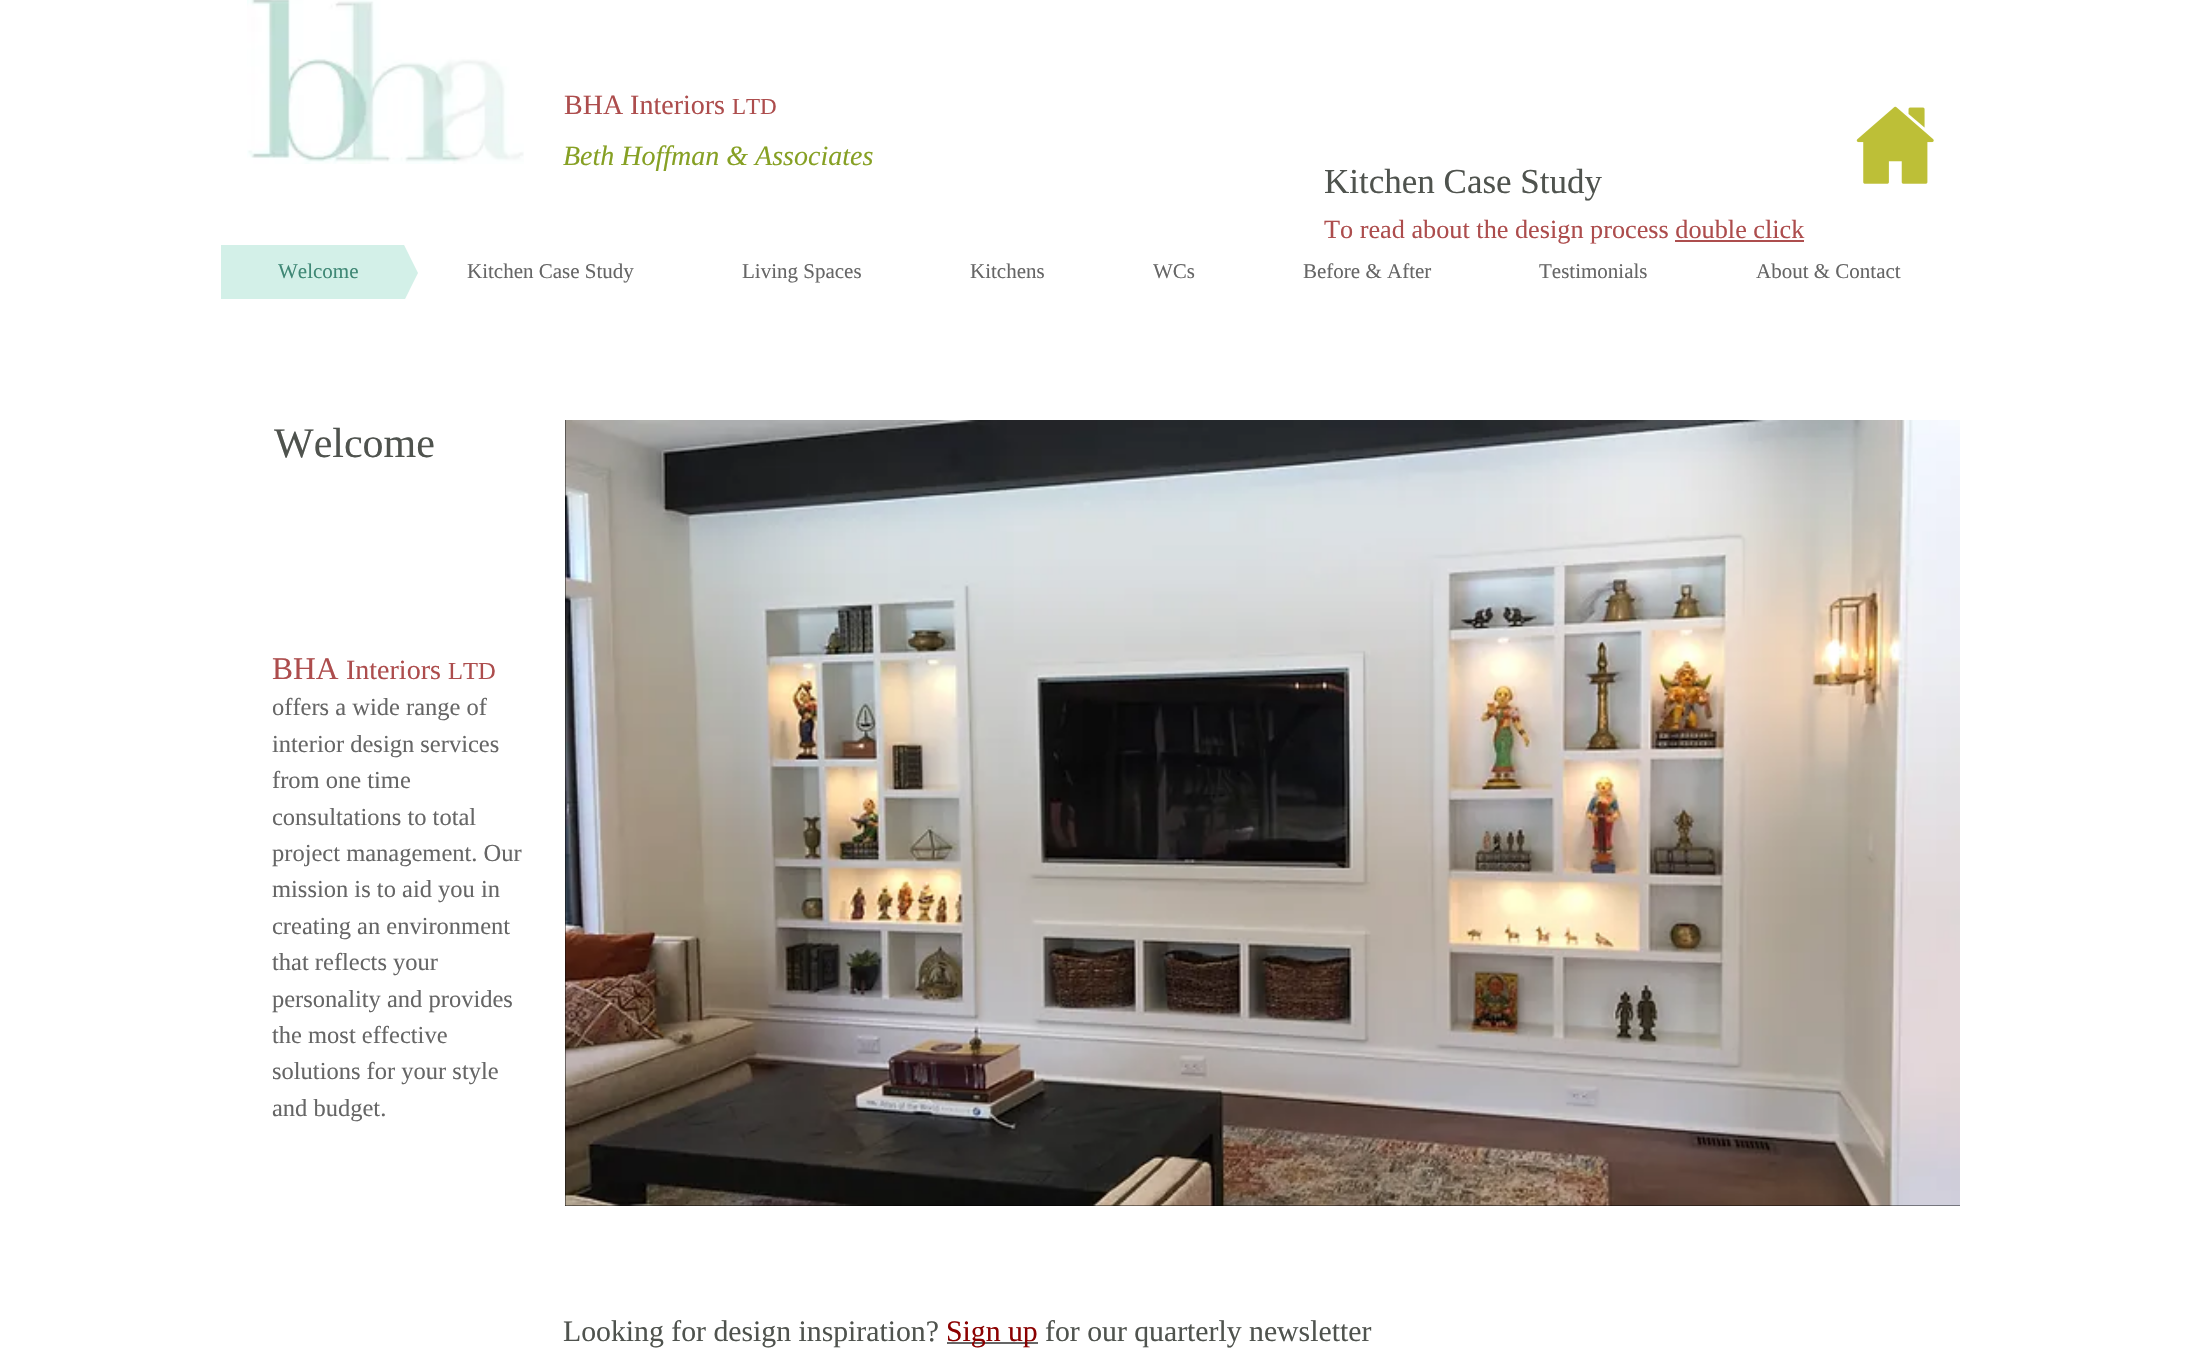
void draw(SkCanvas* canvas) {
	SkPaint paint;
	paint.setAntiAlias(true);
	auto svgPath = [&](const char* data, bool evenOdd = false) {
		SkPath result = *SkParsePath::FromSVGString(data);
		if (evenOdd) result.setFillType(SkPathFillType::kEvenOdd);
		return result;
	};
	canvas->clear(0xffffffff);
	canvas->drawImageRect(SkImages::DeferredFromEncodedData(SkData::MakeFromFileName("img1.png")), SkRect::MakeXYWH(247, 0, 277, 164), SkSamplingOptions());
	SkFont f1(fontMgr->matchFamilyStyle("Liberation Serif", SkFontStyle::Normal()), 28);
	f1.setSubpixel(true);
	paint.setColor(0xffad4d4d);
	canvas->drawString("BHA Interiors", 564, 114, f1, paint);
	SkFont f2(fontMgr->matchFamilyStyle("Liberation Serif", SkFontStyle::Normal()), 23);
	f2.setSubpixel(true);
	canvas->drawString("LTD", 732, 114, f2, paint);
	SkFont f3(fontMgr->matchFamilyStyle("Liberation Serif", SkFontStyle::Italic()), 28);
	f3.setSubpixel(true);
	paint.setColor(0xff86a023);
	canvas->drawString("Beth Hoffman & Associates", 563, 165, f3, paint);
	paint.setColor(0xffd3f0e8);
	canvas->drawRect(SkRect::MakeXYWH(221, 245, 75, 54), paint);
	canvas->save();
	canvas->clipRect(SkRect::MakeXYWH(296, 245, 122, 54));
	canvas->drawPath(svgPath("M418 273H296V28Z"), paint);
	canvas->drawPath(svgPath("M296 273H418L296 518Z"), paint);
	canvas->restore();
	SkFont f4(fontMgr->matchFamilyStyle("Liberation Serif", SkFontStyle::Normal()), 21);
	f4.setSubpixel(true);
	paint.setColor(0xff3f8875);
	canvas->drawString("Welcome", 278, 278, f4, paint);
	paint.setColor(0xff666666);
	canvas->drawString("Kitchen Case Study", 467, 278, f4, paint);
	canvas->drawString("Living Spaces", 742, 278, f4, paint);
	canvas->drawString("Kitchens", 970, 278, f4, paint);
	canvas->drawString("WCs", 1153, 278, f4, paint);
	canvas->drawString("Before & After", 1303, 278, f4, paint);
	canvas->drawString("Testimonials", 1539, 278, f4, paint);
	canvas->drawString("About & Contact", 1756, 278, f4, paint);
	canvas->drawImageRect(SkImages::DeferredFromEncodedData(SkData::MakeFromFileName("img2.png")), SkRect::MakeXYWH(1856, 106, 78, 78), SkSamplingOptions());
	SkFont f5(fontMgr->matchFamilyStyle("Liberation Serif", SkFontStyle::Normal()), 35);
	f5.setSubpixel(true);
	paint.setColor(0xff4f534e);
	canvas->drawString("Kitchen Case Study", 1324, 193, f5, paint);
	SkFont f6(fontMgr->matchFamilyStyle("Liberation Serif", SkFontStyle::Normal()), 26.25);
	f6.setSubpixel(true);
	paint.setColor(0xffad4d4d);
	canvas->drawString("To read about the design process double click", 1324, 238, f6, paint);
	paint.setColor(0xffad4e4e);
	canvas->drawRect(SkRect::MakeXYWH(1675, 240, 129, 2), paint);
	SkFont f7(fontMgr->matchFamilyStyle("Liberation Serif", SkFontStyle::Normal()), 42);
	f7.setSubpixel(true);
	paint.setColor(0xff4f534e);
	canvas->drawString("Welcome", 274, 457, f7, paint);
	paint.setColor(0xff000000);
	canvas->drawRect(SkRect::MakeXYWH(565, 420, 1395, 786), paint);
	canvas->drawImageRect(SkImages::DeferredFromEncodedData(SkData::MakeFromFileName("img3.png")), SkRect::MakeXYWH(565, 420, 1395, 786), SkSamplingOptions());
	SkFont f8(fontMgr->matchFamilyStyle("Liberation Serif", SkFontStyle::Normal()), 31.5);
	f8.setSubpixel(true);
	paint.setColor(0xffad4d4d);
	canvas->drawString("BHA", 272, 679, f8, paint);
	canvas->drawString("Interiors", 346, 679, f1, paint);
	SkFont f9(fontMgr->matchFamilyStyle("Liberation Serif", SkFontStyle::Normal()), 24.5);
	f9.setSubpixel(true);
	canvas->drawString("LTD", 448, 679, f9, paint);
	paint.setColor(0xff666666);
	canvas->drawString("offers a wide range of", 272, 715, f9, paint);
	canvas->drawString("interior design services", 272, 752, f9, paint);
	canvas->drawString("from one time", 272, 788, f9, paint);
	canvas->drawString("consultations to total", 272, 825, f9, paint);
	canvas->drawString("project management. Our", 272, 861, f9, paint);
	canvas->drawString("mission is to aid you in", 272, 897, f9, paint);
	canvas->drawString("creating an environment", 272, 934, f9, paint);
	canvas->drawString("that reflects your", 272, 970, f9, paint);
	canvas->drawString("personality and provides", 272, 1007, f9, paint);
	canvas->drawString("the most effective", 272, 1043, f9, paint);
	canvas->drawString("solutions for your style", 272, 1079, f9, paint);
	canvas->drawString("and budget.", 272, 1116, f9, paint);
	SkFont f10(fontMgr->matchFamilyStyle("Liberation Serif", SkFontStyle::Normal()), 29.75);
	f10.setSubpixel(true);
	paint.setColor(0xff4f534e);
	canvas->drawString("Looking for design inspiration?", 563, 1341, f10, paint);
	paint.setColor(0xff666666);
	canvas->drawRect(SkRect::MakeXYWH(947, 1342, 91, 2), paint);
	paint.setColor(0xff8b0000);
	canvas->drawString("Sign up", 946, 1341, f10, paint);
	paint.setColor(0xff4f534e);
	canvas->drawString("for our quarterly newsletter", 1045, 1341, f10, paint);
}
